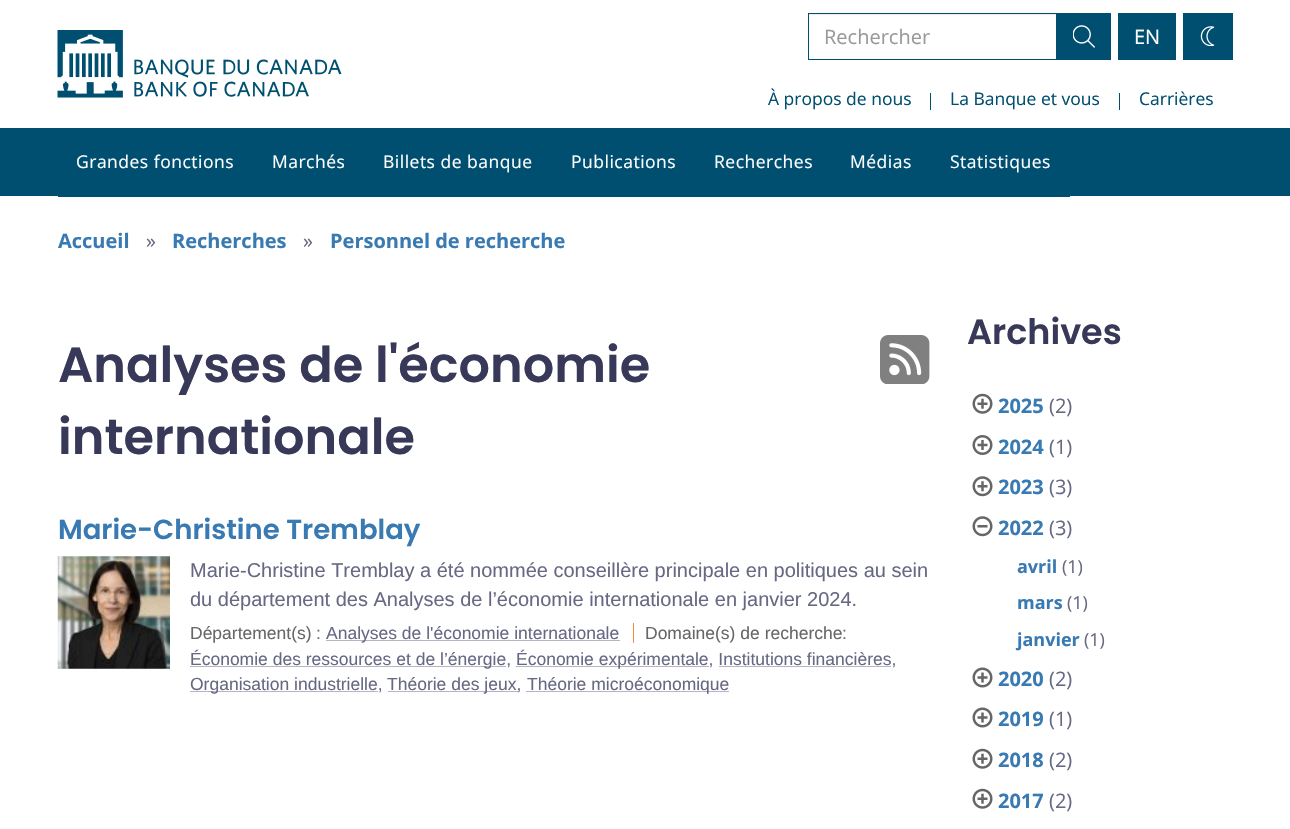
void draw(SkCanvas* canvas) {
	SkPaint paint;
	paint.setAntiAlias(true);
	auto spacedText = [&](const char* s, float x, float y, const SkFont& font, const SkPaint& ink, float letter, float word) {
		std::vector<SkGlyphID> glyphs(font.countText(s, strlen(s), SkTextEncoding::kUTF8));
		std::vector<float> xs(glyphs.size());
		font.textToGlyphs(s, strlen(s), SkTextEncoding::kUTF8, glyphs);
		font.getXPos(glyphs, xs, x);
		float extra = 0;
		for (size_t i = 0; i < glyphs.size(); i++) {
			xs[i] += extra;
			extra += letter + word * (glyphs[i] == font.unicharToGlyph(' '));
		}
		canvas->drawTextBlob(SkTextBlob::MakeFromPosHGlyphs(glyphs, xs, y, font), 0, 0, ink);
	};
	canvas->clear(0xffffffff);
	canvas->drawImageRect(SkImages::DeferredFromEncodedData(SkData::MakeFromFileName("img1.png")), SkRect::MakeXYWH(57, 30, 285, 68), SkSamplingOptions());
	paint.setColor(0xffececec);
	canvas->drawRect(SkRect::MakeXYWH(809, 14, 247, 1), paint);
	paint.setStroke(true);
	paint.setStrokeWidth(1);
	paint.setColor(0xff004f71);
	canvas->drawRect(SkRect::MakeXYWH(808.5, 13.5, 249, 46), paint);
	SkFont f1(fontMgr->matchFamilyStyle("Open Sans", SkFontStyle::Normal()), 20);
	f1.setSubpixel(true);
	paint.setStroke(false);
	paint.setColor(0xff999999);
	canvas->drawString("Rechercher", 824, 44, f1, paint);
	paint.setColor(0xff004f71);
	canvas->drawRect(SkRect::MakeXYWH(1056, 13, 55, 47), paint);
	canvas->drawImageRect(SkImages::DeferredFromEncodedData(SkData::MakeFromFileName("img2.png")), SkRect::MakeXYWH(1073, 25, 22, 23), SkSamplingOptions());
	canvas->drawRect(SkRect::MakeXYWH(1118, 13, 58, 47), paint);
	paint.setColor(0xffffffff);
	canvas->drawString("EN", 1134, 44, f1, paint);
	paint.setColor(0xff004f71);
	canvas->drawRect(SkRect::MakeXYWH(1183, 13, 50, 47), paint);
	canvas->drawImageRect(SkImages::DeferredFromEncodedData(SkData::MakeFromFileName("img3.png")), SkRect::MakeXYWH(1200, 26, 15, 20), SkSamplingOptions());
	SkFont f2(fontMgr->matchFamilyStyle("Open Sans", SkFontStyle::Normal()), 17.5);
	f2.setSubpixel(true);
	canvas->drawString("À propos de nous", 768, 105, f2, paint);
	canvas->drawRect(SkRect::MakeXYWH(930, 93, 1, 17), paint);
	canvas->drawString("La Banque et vous", 950, 105, f2, paint);
	canvas->drawRect(SkRect::MakeXYWH(1119, 93, 1, 17), paint);
	canvas->drawString("Carrières", 1139, 105, f2, paint);
	canvas->drawRect(SkRect::MakeXYWH(0, 128, 1290, 68), paint);
	canvas->drawRect(SkRect::MakeXYWH(58, 196, 1012, 1), paint);
	paint.setColor(0xffffffff);
	spacedText("Grandes fonctions", 76, 168, f2, paint, 0.5, 0);
	spacedText("Marchés", 272, 168, f2, paint, 0.5, 0);
	spacedText("Billets de banque", 383, 168, f2, paint, 0.5, 0);
	spacedText("Publications", 571, 168, f2, paint, 0.5, 0);
	spacedText("Recherches", 714, 168, f2, paint, 0.5, 0);
	spacedText("Médias", 850, 168, f2, paint, 0.5, 0);
	spacedText("Statistiques", 950, 168, f2, paint, 0.5, 0);
	SkFont f3(fontMgr->matchFamilyStyle("Open Sans", SkFontStyle::Bold()), 20);
	f3.setSubpixel(true);
	paint.setColor(0xff397ab2);
	canvas->drawString("Accueil", 58, 248, f3, paint);
	paint.setColor(0xff676984);
	canvas->drawString("»", 146, 248, f1, paint);
	paint.setColor(0xff397ab2);
	canvas->drawString("Recherches", 172, 248, f3, paint);
	paint.setColor(0xff676984);
	canvas->drawString("»", 303, 248, f1, paint);
	paint.setColor(0xff397ab2);
	canvas->drawString("Personnel de recherche", 330, 248, f3, paint);
	SkFont f4(fontMgr->matchFamilyStyle("Poppins", SkFontStyle(600, SkFontStyle::kNormal_Width, SkFontStyle::kUpright_Slant)), 49.4);
	f4.setSubpixel(true);
	paint.setColor(0xff383859);
	canvas->drawString("Analyses de l'économie", 58, 382, f4, paint);
	canvas->drawImageRect(SkImages::DeferredFromEncodedData(SkData::MakeFromFileName("img4.png")), SkRect::MakeXYWH(880, 335, 50, 49), SkSamplingOptions());
	canvas->drawString("internationale", 58, 454, f4, paint);
	SkFont f5(fontMgr->matchFamilyStyle("Poppins", SkFontStyle(600, SkFontStyle::kNormal_Width, SkFontStyle::kUpright_Slant)), 27.5);
	f5.setSubpixel(true);
	paint.setColor(0xff397ab2);
	canvas->drawString("Marie-Christine Tremblay", 58, 539, f5, paint);
	canvas->drawImageRect(SkImages::DeferredFromEncodedData(SkData::MakeFromFileName("img5.png")), SkRect::MakeXYWH(57, 556, 113, 113), SkSamplingOptions());
	SkFont f6(fontMgr->matchFamilyStyle("Liberation Sans", SkFontStyle::Normal()), 20);
	f6.setSubpixel(true);
	paint.setColor(0xff676984);
	canvas->drawString("Marie-Christine Tremblay a été nommée conseillère principale en politiques au sein", 190, 577, f6, paint);
	canvas->drawString("du département des Analyses de l’économie internationale en janvier 2024.", 190, 606, f6, paint);
	SkFont f7(fontMgr->matchFamilyStyle("Liberation Sans", SkFontStyle::Normal()), 17.5);
	f7.setSubpixel(true);
	paint.setColor(0xff686666);
	canvas->drawString("Département(s)", 190, 639, f7, paint);
	paint.setColor(0xff676984);
	canvas->drawString(":", 316, 639, f7, paint);
	paint.setColor(0xffb7b5bf);
	canvas->drawRect(SkRect::MakeXYWH(326, 640, 294, 1), paint);
	paint.setColor(0xff676984);
	canvas->drawString("Analyses de l'économie internationale", 326, 639, f7, paint);
	paint.setColor(0xff686666);
	canvas->drawString("Domaine(s) de recherche", 645, 639, f7, paint);
	paint.setColor(0xffff893b);
	canvas->drawRect(SkRect::MakeXYWH(633, 623, 1, 20), paint);
	paint.setColor(0xff676984);
	canvas->drawString(":", 842, 639, f7, paint);
	paint.setColor(0xffb7b5bf);
	canvas->drawRect(SkRect::MakeXYWH(190, 666, 316, 1), paint);
	paint.setColor(0xff676984);
	canvas->drawString("Économie des ressources et de l’énergie,", 190, 665, f7, paint);
	paint.setColor(0xffb7b5bf);
	canvas->drawRect(SkRect::MakeXYWH(516, 666, 193, 1), paint);
	paint.setColor(0xff676984);
	canvas->drawString("Économie expérimentale, Institutions financières,", 516, 665, f7, paint);
	paint.setColor(0xffb7b5bf);
	canvas->drawRect(SkRect::MakeXYWH(719, 666, 172, 1), paint);
	canvas->drawRect(SkRect::MakeXYWH(190, 691, 188, 1), paint);
	paint.setColor(0xff676984);
	canvas->drawString("Organisation industrielle,", 190, 690, f7, paint);
	paint.setColor(0xffb7b5bf);
	canvas->drawRect(SkRect::MakeXYWH(388, 691, 130, 1), paint);
	paint.setColor(0xff676984);
	canvas->drawString("Théorie des jeux,", 387, 690, f7, paint);
	paint.setColor(0xffb7b5bf);
	canvas->drawRect(SkRect::MakeXYWH(526, 691, 203, 1), paint);
	paint.setColor(0xff676984);
	canvas->drawString("Théorie microéconomique", 527, 690, f7, paint);
	SkFont f8(fontMgr->matchFamilyStyle("Poppins", SkFontStyle(600, SkFontStyle::kNormal_Width, SkFontStyle::kUpright_Slant)), 35);
	f8.setSubpixel(true);
	paint.setColor(0xff383859);
	canvas->drawString("Archives", 967, 344, f8, paint);
	canvas->drawImageRect(SkImages::DeferredFromEncodedData(SkData::MakeFromFileName("img6.png")), SkRect::MakeXYWH(972, 393, 21, 21), SkSamplingOptions());
	paint.setColor(0xff397ab2);
	canvas->drawString("2025", 998, 413, f3, paint);
	paint.setColor(0xff676984);
	canvas->drawString("(2)", 1049, 413, f1, paint);
	canvas->drawImageRect(SkImages::DeferredFromEncodedData(SkData::MakeFromFileName("img7.png")), SkRect::MakeXYWH(972, 435, 21, 20), SkSamplingOptions());
	paint.setColor(0xff397ab2);
	canvas->drawString("2024", 998, 454, f3, paint);
	paint.setColor(0xff676984);
	canvas->drawString("(1)", 1049, 454, f1, paint);
	canvas->drawImageRect(SkImages::DeferredFromEncodedData(SkData::MakeFromFileName("img8.png")), SkRect::MakeXYWH(972, 476, 21, 21), SkSamplingOptions());
	paint.setColor(0xff397ab2);
	canvas->drawString("2023", 998, 494, f3, paint);
	paint.setColor(0xff676984);
	canvas->drawString("(3)", 1049, 494, f1, paint);
	canvas->drawImageRect(SkImages::DeferredFromEncodedData(SkData::MakeFromFileName("img9.png")), SkRect::MakeXYWH(972, 516, 21, 21), SkSamplingOptions());
	paint.setColor(0xff397ab2);
	canvas->drawString("2022", 998, 535, f3, paint);
	paint.setColor(0xff676984);
	canvas->drawString("(3)", 1049, 535, f1, paint);
	SkFont f9(fontMgr->matchFamilyStyle("Open Sans", SkFontStyle::Bold()), 18);
	f9.setSubpixel(true);
	paint.setColor(0xff397ab2);
	canvas->drawString("avril", 1017, 573, f9, paint);
	SkFont f10(fontMgr->matchFamilyStyle("Open Sans", SkFontStyle::Normal()), 18);
	f10.setSubpixel(true);
	paint.setColor(0xff676984);
	canvas->drawString("(1)", 1062, 573, f10, paint);
	paint.setColor(0xff397ab2);
	canvas->drawString("mars", 1017, 609, f9, paint);
	paint.setColor(0xff676984);
	canvas->drawString("(1)", 1067, 609, f10, paint);
	paint.setColor(0xff397ab2);
	canvas->drawString("janvier", 1017, 646, f9, paint);
	paint.setColor(0xff676984);
	canvas->drawString("(1)", 1084, 646, f10, paint);
	canvas->drawImageRect(SkImages::DeferredFromEncodedData(SkData::MakeFromFileName("img10.png")), SkRect::MakeXYWH(972, 667, 21, 21), SkSamplingOptions());
	paint.setColor(0xff397ab2);
	canvas->drawString("2020", 998, 686, f3, paint);
	paint.setColor(0xff676984);
	canvas->drawString("(2)", 1049, 686, f1, paint);
	canvas->drawImageRect(SkImages::DeferredFromEncodedData(SkData::MakeFromFileName("img10.png")), SkRect::MakeXYWH(972, 707, 21, 21), SkSamplingOptions());
	paint.setColor(0xff397ab2);
	canvas->drawString("2019", 998, 726, f3, paint);
	paint.setColor(0xff676984);
	canvas->drawString("(1)", 1049, 726, f1, paint);
	canvas->drawImageRect(SkImages::DeferredFromEncodedData(SkData::MakeFromFileName("img6.png")), SkRect::MakeXYWH(972, 748, 21, 21), SkSamplingOptions());
	paint.setColor(0xff397ab2);
	canvas->drawString("2018", 998, 767, f3, paint);
	paint.setColor(0xff676984);
	canvas->drawString("(2)", 1049, 767, f1, paint);
	canvas->drawImageRect(SkImages::DeferredFromEncodedData(SkData::MakeFromFileName("img6.png")), SkRect::MakeXYWH(972, 788, 21, 21), SkSamplingOptions());
	paint.setColor(0xff397ab2);
	canvas->drawString("2017", 998, 808, f3, paint);
	paint.setColor(0xff676984);
	canvas->drawString("(2)", 1049, 808, f1, paint);
}
